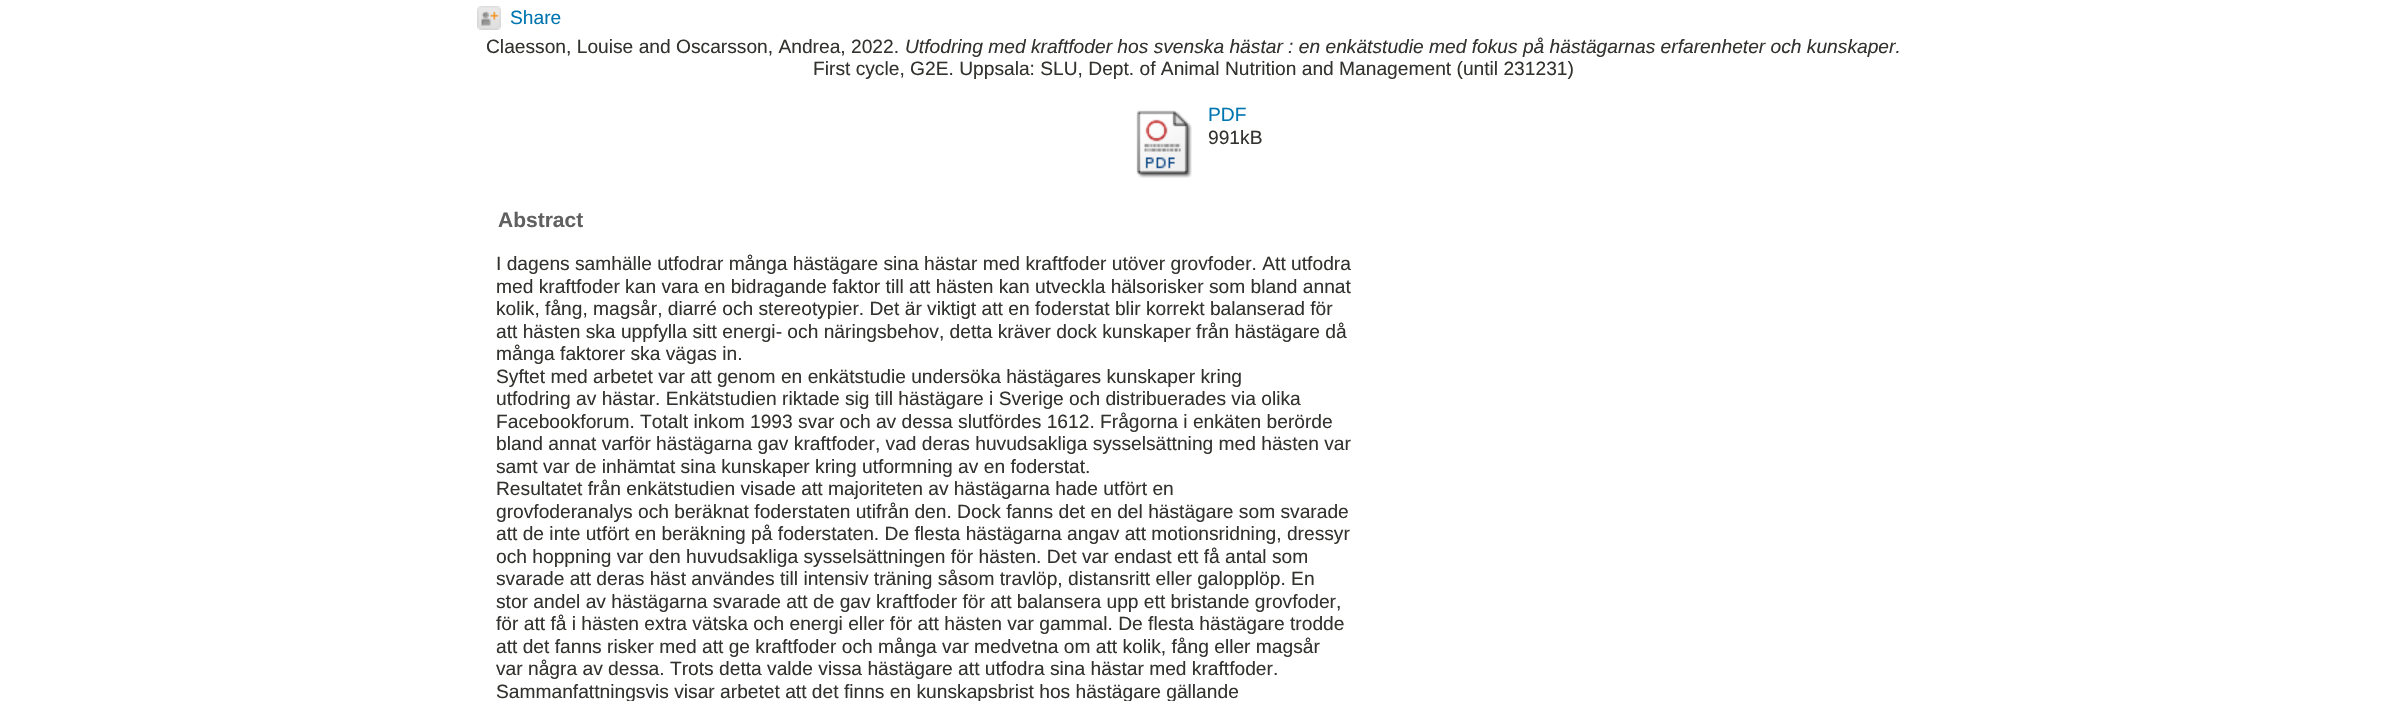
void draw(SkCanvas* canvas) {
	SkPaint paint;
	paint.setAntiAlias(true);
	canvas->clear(0xffffffff);
	canvas->drawImageRect(SkImages::DeferredFromEncodedData(SkData::MakeFromFileName("img1.png")), SkRect::MakeXYWH(477, 6, 24, 24), SkSamplingOptions());
	SkFont f1(fontMgr->matchFamilyStyle("Liberation Sans", SkFontStyle::Normal()), 19.2);
	f1.setSubpixel(true);
	paint.setColor(0xff0075b0);
	canvas->drawString("Share", 510, 24, f1, paint);
	paint.setColor(0xff32322f);
	canvas->drawString("Claesson, Louise and Oscarsson, Andrea, 2022.", 486, 53, f1, paint);
	SkFont f2(fontMgr->matchFamilyStyle("Liberation Sans", SkFontStyle::Italic()), 19.2);
	f2.setSubpixel(true);
	canvas->drawString("Utfodring med kraftfoder hos svenska hästar : en enkätstudie med fokus på hästägarnas erfarenheter och kunskaper.", 905, 53, f2, paint);
	canvas->drawString("First cycle, G2E. Uppsala: SLU, Dept. of Animal Nutrition and Management (until 231231)", 813, 75, f1, paint);
	canvas->drawImageRect(SkImages::DeferredFromEncodedData(SkData::MakeFromFileName("img2.png")), SkRect::MakeXYWH(1136, 110, 56, 68), SkSamplingOptions());
	paint.setColor(0xff0075b0);
	canvas->drawString("PDF", 1208, 121, f1, paint);
	paint.setColor(0xff32322f);
	canvas->drawString("991kB", 1208, 144, f1, paint);
	SkFont f3(fontMgr->matchFamilyStyle("Liberation Sans", SkFontStyle::Bold()), 21);
	f3.setSubpixel(true);
	paint.setColor(0xff606060);
	canvas->drawString("Abstract", 498, 227, f3, paint);
	paint.setColor(0xff32322f);
	canvas->drawString("I dagens samhälle utfodrar många hästägare sina hästar med kraftfoder utöver grovfoder. Att utfodra", 496, 270, f1, paint);
	canvas->drawString("med kraftfoder kan vara en bidragande faktor till att hästen kan utveckla hälsorisker som bland annat", 496, 293, f1, paint);
	canvas->drawString("kolik, fång, magsår, diarré och stereotypier. Det är viktigt att en foderstat blir korrekt balanserad för", 496, 315, f1, paint);
	canvas->drawString("att hästen ska uppfylla sitt energi- och näringsbehov, detta kräver dock kunskaper från hästägare då", 496, 338, f1, paint);
	canvas->drawString("många faktorer ska vägas in.", 496, 360, f1, paint);
	canvas->drawString("Syftet med arbetet var att genom en enkätstudie undersöka hästägares kunskaper kring", 496, 383, f1, paint);
	canvas->drawString("utfodring av hästar. Enkätstudien riktade sig till hästägare i Sverige och distribuerades via olika", 496, 405, f1, paint);
	canvas->drawString("Facebookforum. Totalt inkom 1993 svar och av dessa slutfördes 1612. Frågorna i enkäten berörde", 496, 428, f1, paint);
	canvas->drawString("bland annat varför hästägarna gav kraftfoder, vad deras huvudsakliga sysselsättning med hästen var", 496, 450, f1, paint);
	canvas->drawString("samt var de inhämtat sina kunskaper kring utformning av en foderstat.", 496, 473, f1, paint);
	canvas->drawString("Resultatet från enkätstudien visade att majoriteten av hästägarna hade utfört en", 496, 495, f1, paint);
	canvas->drawString("grovfoderanalys och beräknat foderstaten utifrån den. Dock fanns det en del hästägare som svarade", 496, 518, f1, paint);
	canvas->drawString("att de inte utfört en beräkning på foderstaten. De flesta hästägarna angav att motionsridning, dressyr", 496, 540, f1, paint);
	canvas->drawString("och hoppning var den huvudsakliga sysselsättningen för hästen. Det var endast ett få antal som", 496, 563, f1, paint);
	canvas->drawString("svarade att deras häst användes till intensiv träning såsom travlöp, distansritt eller galopplöp. En", 496, 585, f1, paint);
	canvas->drawString("stor andel av hästägarna svarade att de gav kraftfoder för att balansera upp ett bristande grovfoder,", 496, 608, f1, paint);
	canvas->drawString("för att få i hästen extra vätska och energi eller för att hästen var gammal. De flesta hästägare trodde", 496, 630, f1, paint);
	canvas->drawString("att det fanns risker med att ge kraftfoder och många var medvetna om att kolik, fång eller magsår", 496, 653, f1, paint);
	canvas->drawString("var några av dessa. Trots detta valde vissa hästägare att utfodra sina hästar med kraftfoder.", 496, 675, f1, paint);
	canvas->drawString("Sammanfattningsvis visar arbetet att det finns en kunskapsbrist hos hästägare gällande", 496, 698, f1, paint);
}
